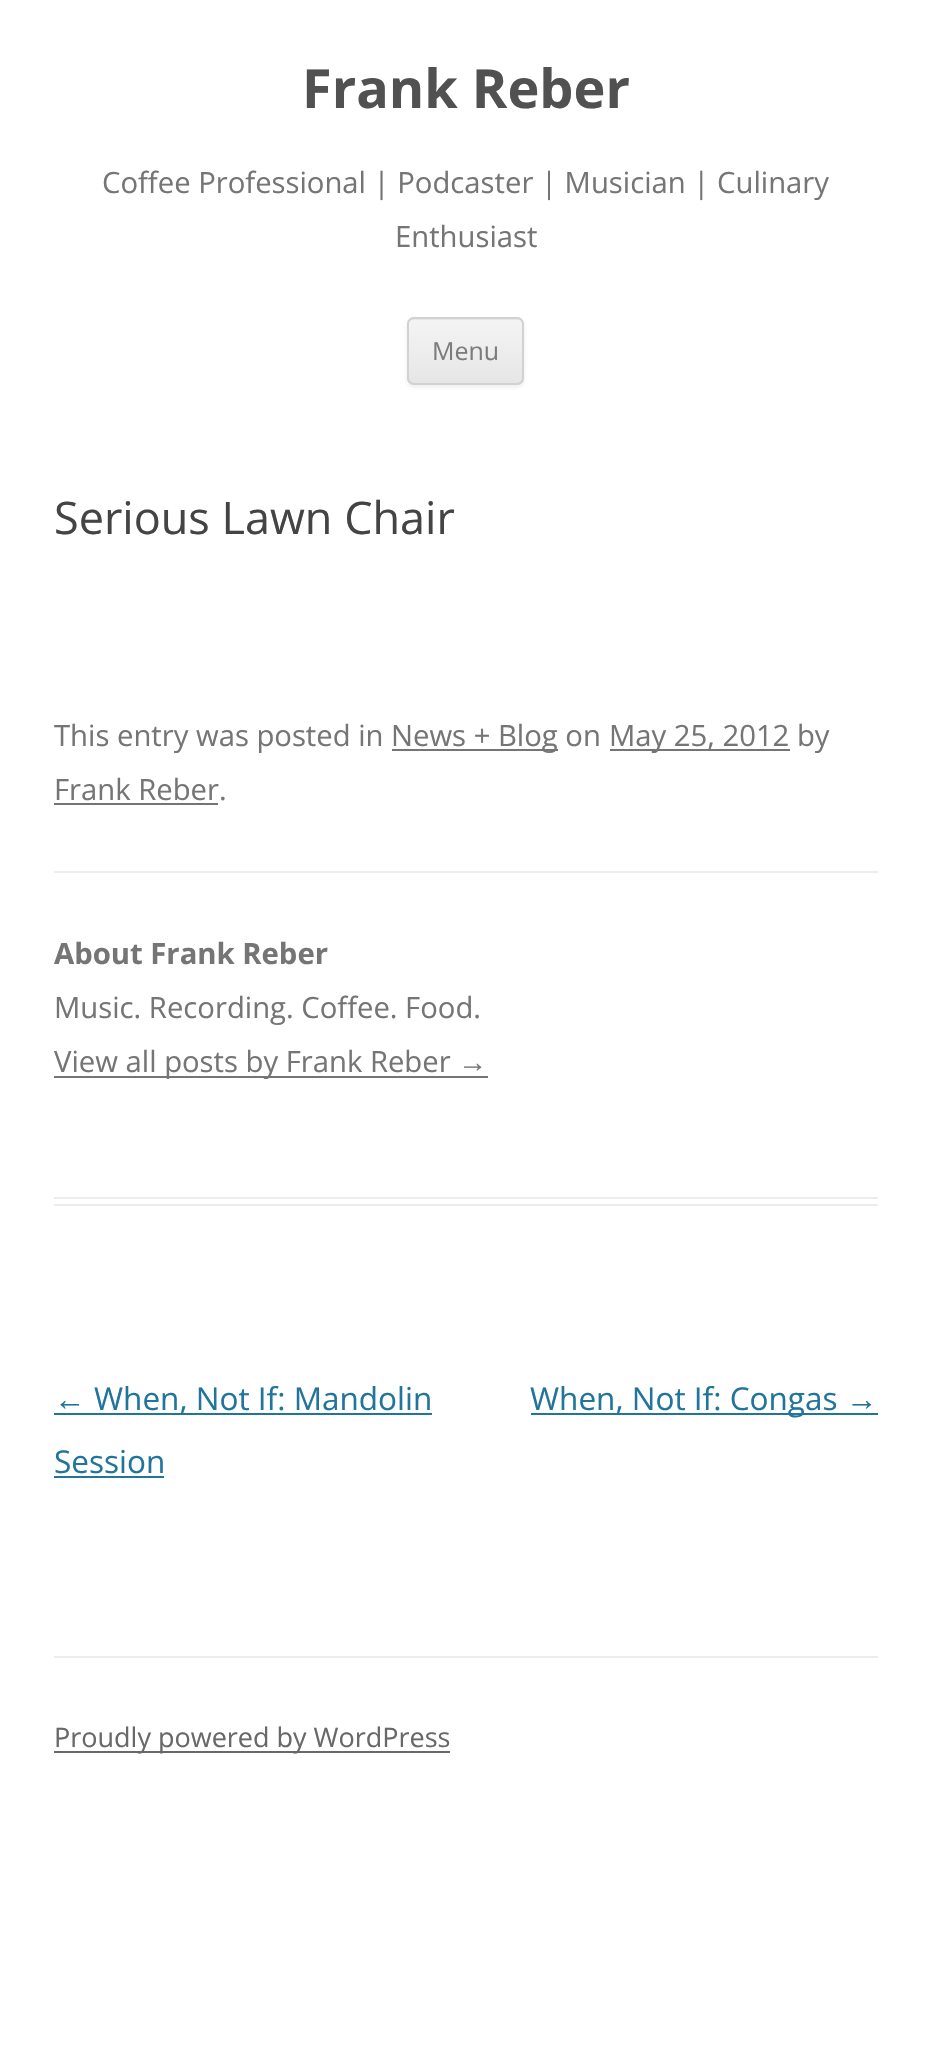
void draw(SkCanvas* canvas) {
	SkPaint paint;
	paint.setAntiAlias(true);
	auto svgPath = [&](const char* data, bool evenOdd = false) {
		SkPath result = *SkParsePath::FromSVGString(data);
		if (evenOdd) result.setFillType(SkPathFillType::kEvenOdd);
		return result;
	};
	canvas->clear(0xffffffff);
	SkFont f1(fontMgr->matchFamilyStyle("Open Sans", SkFontStyle::Bold()), 54);
	f1.setSubpixel(true);
	paint.setColor(0xff515151);
	canvas->drawString("Frank Reber", 302, 108, f1, paint);
	SkFont f2(fontMgr->matchFamilyStyle("Open Sans", SkFontStyle::Normal()), 29.25);
	f2.setSubpixel(true);
	paint.setColor(0xff757575);
	canvas->drawString("Coffee Professional | Podcaster | Musician | Culinary", 102, 193, f2, paint);
	canvas->drawString("Enthusiast", 395, 247, f2, paint);
	paint.setColor(0x1a404040);
	paint.setMaskFilter(SkMaskFilter::MakeBlur(kNormal_SkBlurStyle, 2));
	canvas->drawRoundRect(SkRect::MakeXYWH(407, 320, 117, 67), 7, 7, paint);
	paint.setMaskFilter(nullptr);
	paint.setColor(0xffe6e6e6);
	canvas->drawRoundRect(SkRect::MakeXYWH(407, 317, 117, 68), 7, 7, paint);
	canvas->save();
	canvas->clipPath(svgPath("M414 317H517C521 317 524 320 524 324V378C524 382 521 385 517 385H414C410 385 407 382 407 378V324C407 320 410 317 414 317Z"), true);
	{
		const SkColor colors[] = {0xfff4f4f4, 0xffe6e6e6};
		const float stops[] = {0, 1};
		const SkPoint ends[] = {{466, 320}, {466, 383}};
		paint.setShader(SkGradientShader::MakeLinear(ends, colors, stops, 2, SkTileMode::kClamp));
		paint.setAlpha(255);
	}
	canvas->drawRect(SkRect::MakeXYWH(407, 320, 117, 63), paint);
	canvas->restore();
	paint.setStroke(true);
	paint.setStrokeWidth(2);
	paint.setShader(nullptr);
	paint.setColor(0xffd2d2d2);
	canvas->drawRoundRect(SkRect::MakeXYWH(408, 318, 115, 66), 6, 6, paint);
	SkFont f3(fontMgr->matchFamilyStyle("Open Sans", SkFontStyle::Normal()), 25);
	f3.setSubpixel(true);
	paint.setStroke(false);
	paint.setColor(0xff7c7c7c);
	canvas->drawString("Menu", 432, 360, f3, paint);
	paint.setColor(0xffededed);
	canvas->drawRect(SkRect::MakeXYWH(54, 1197, 824, 2), paint);
	canvas->drawRect(SkRect::MakeXYWH(54, 1204, 824, 2), paint);
	SkFont f4(fontMgr->matchFamilyStyle("Open Sans", SkFontStyle::Normal()), 45);
	f4.setSubpixel(true);
	paint.setColor(0xff444444);
	canvas->drawString("Serious Lawn Chair", 54, 534, f4, paint);
	paint.setColor(0xff757575);
	canvas->drawString("This entry was posted in", 54, 746, f2, paint);
	canvas->drawRect(SkRect::MakeXYWH(392, 749, 166, 2), paint);
	canvas->drawString("News + Blog on", 391, 746, f2, paint);
	canvas->drawRect(SkRect::MakeXYWH(610, 749, 180, 2), paint);
	canvas->drawString("May 25, 2012 by", 609, 746, f2, paint);
	canvas->drawString("Frank Reber.", 54, 800, f2, paint);
	canvas->drawRect(SkRect::MakeXYWH(54, 803, 164, 2), paint);
	paint.setColor(0xffededed);
	canvas->drawRect(SkRect::MakeXYWH(54, 871, 824, 2), paint);
	SkFont f5(fontMgr->matchFamilyStyle("Open Sans", SkFontStyle::Bold()), 29.25);
	f5.setSubpixel(true);
	paint.setColor(0xff757575);
	canvas->drawString("About Frank Reber", 54, 964, f5, paint);
	canvas->drawString("Music. Recording. Coffee. Food.", 54, 1018, f2, paint);
	canvas->drawRect(SkRect::MakeXYWH(54, 1076, 434, 2), paint);
	canvas->drawString("View all posts by Frank Reber", 54, 1072, f2, paint);
	SkFont f6(fontMgr->matchFamilyStyle("Liberation Sans", SkFontStyle::Normal()), 29.25);
	f6.setSubpixel(true);
	canvas->drawString("→", 458, 1072, f6, paint);
	SkFont f7(fontMgr->matchFamilyStyle("Liberation Sans", SkFontStyle::Normal()), 31.5);
	f7.setSubpixel(true);
	paint.setColor(0xff21759b);
	canvas->drawString("←", 54, 1410, f7, paint);
	canvas->drawRect(SkRect::MakeXYWH(54, 1413, 378, 2), paint);
	SkFont f8(fontMgr->matchFamilyStyle("Open Sans", SkFontStyle::Normal()), 31.5);
	f8.setSubpixel(true);
	canvas->drawString("When, Not If: Mandolin", 94, 1410, f8, paint);
	canvas->drawString("Session", 54, 1473, f8, paint);
	canvas->drawRect(SkRect::MakeXYWH(54, 1476, 110, 2), paint);
	canvas->drawRect(SkRect::MakeXYWH(531, 1413, 347, 2), paint);
	canvas->drawString("When, Not If: Congas", 530, 1410, f8, paint);
	canvas->drawString("→", 846, 1410, f7, paint);
	paint.setColor(0xffededed);
	canvas->drawRect(SkRect::MakeXYWH(54, 1656, 824, 2), paint);
	paint.setColor(0xff686868);
	canvas->drawRect(SkRect::MakeXYWH(54, 1751, 396, 2), paint);
	SkFont f9(fontMgr->matchFamilyStyle("Open Sans", SkFontStyle::Normal()), 27);
	f9.setSubpixel(true);
	canvas->drawString("Proudly powered by WordPress", 54, 1747, f9, paint);
}
